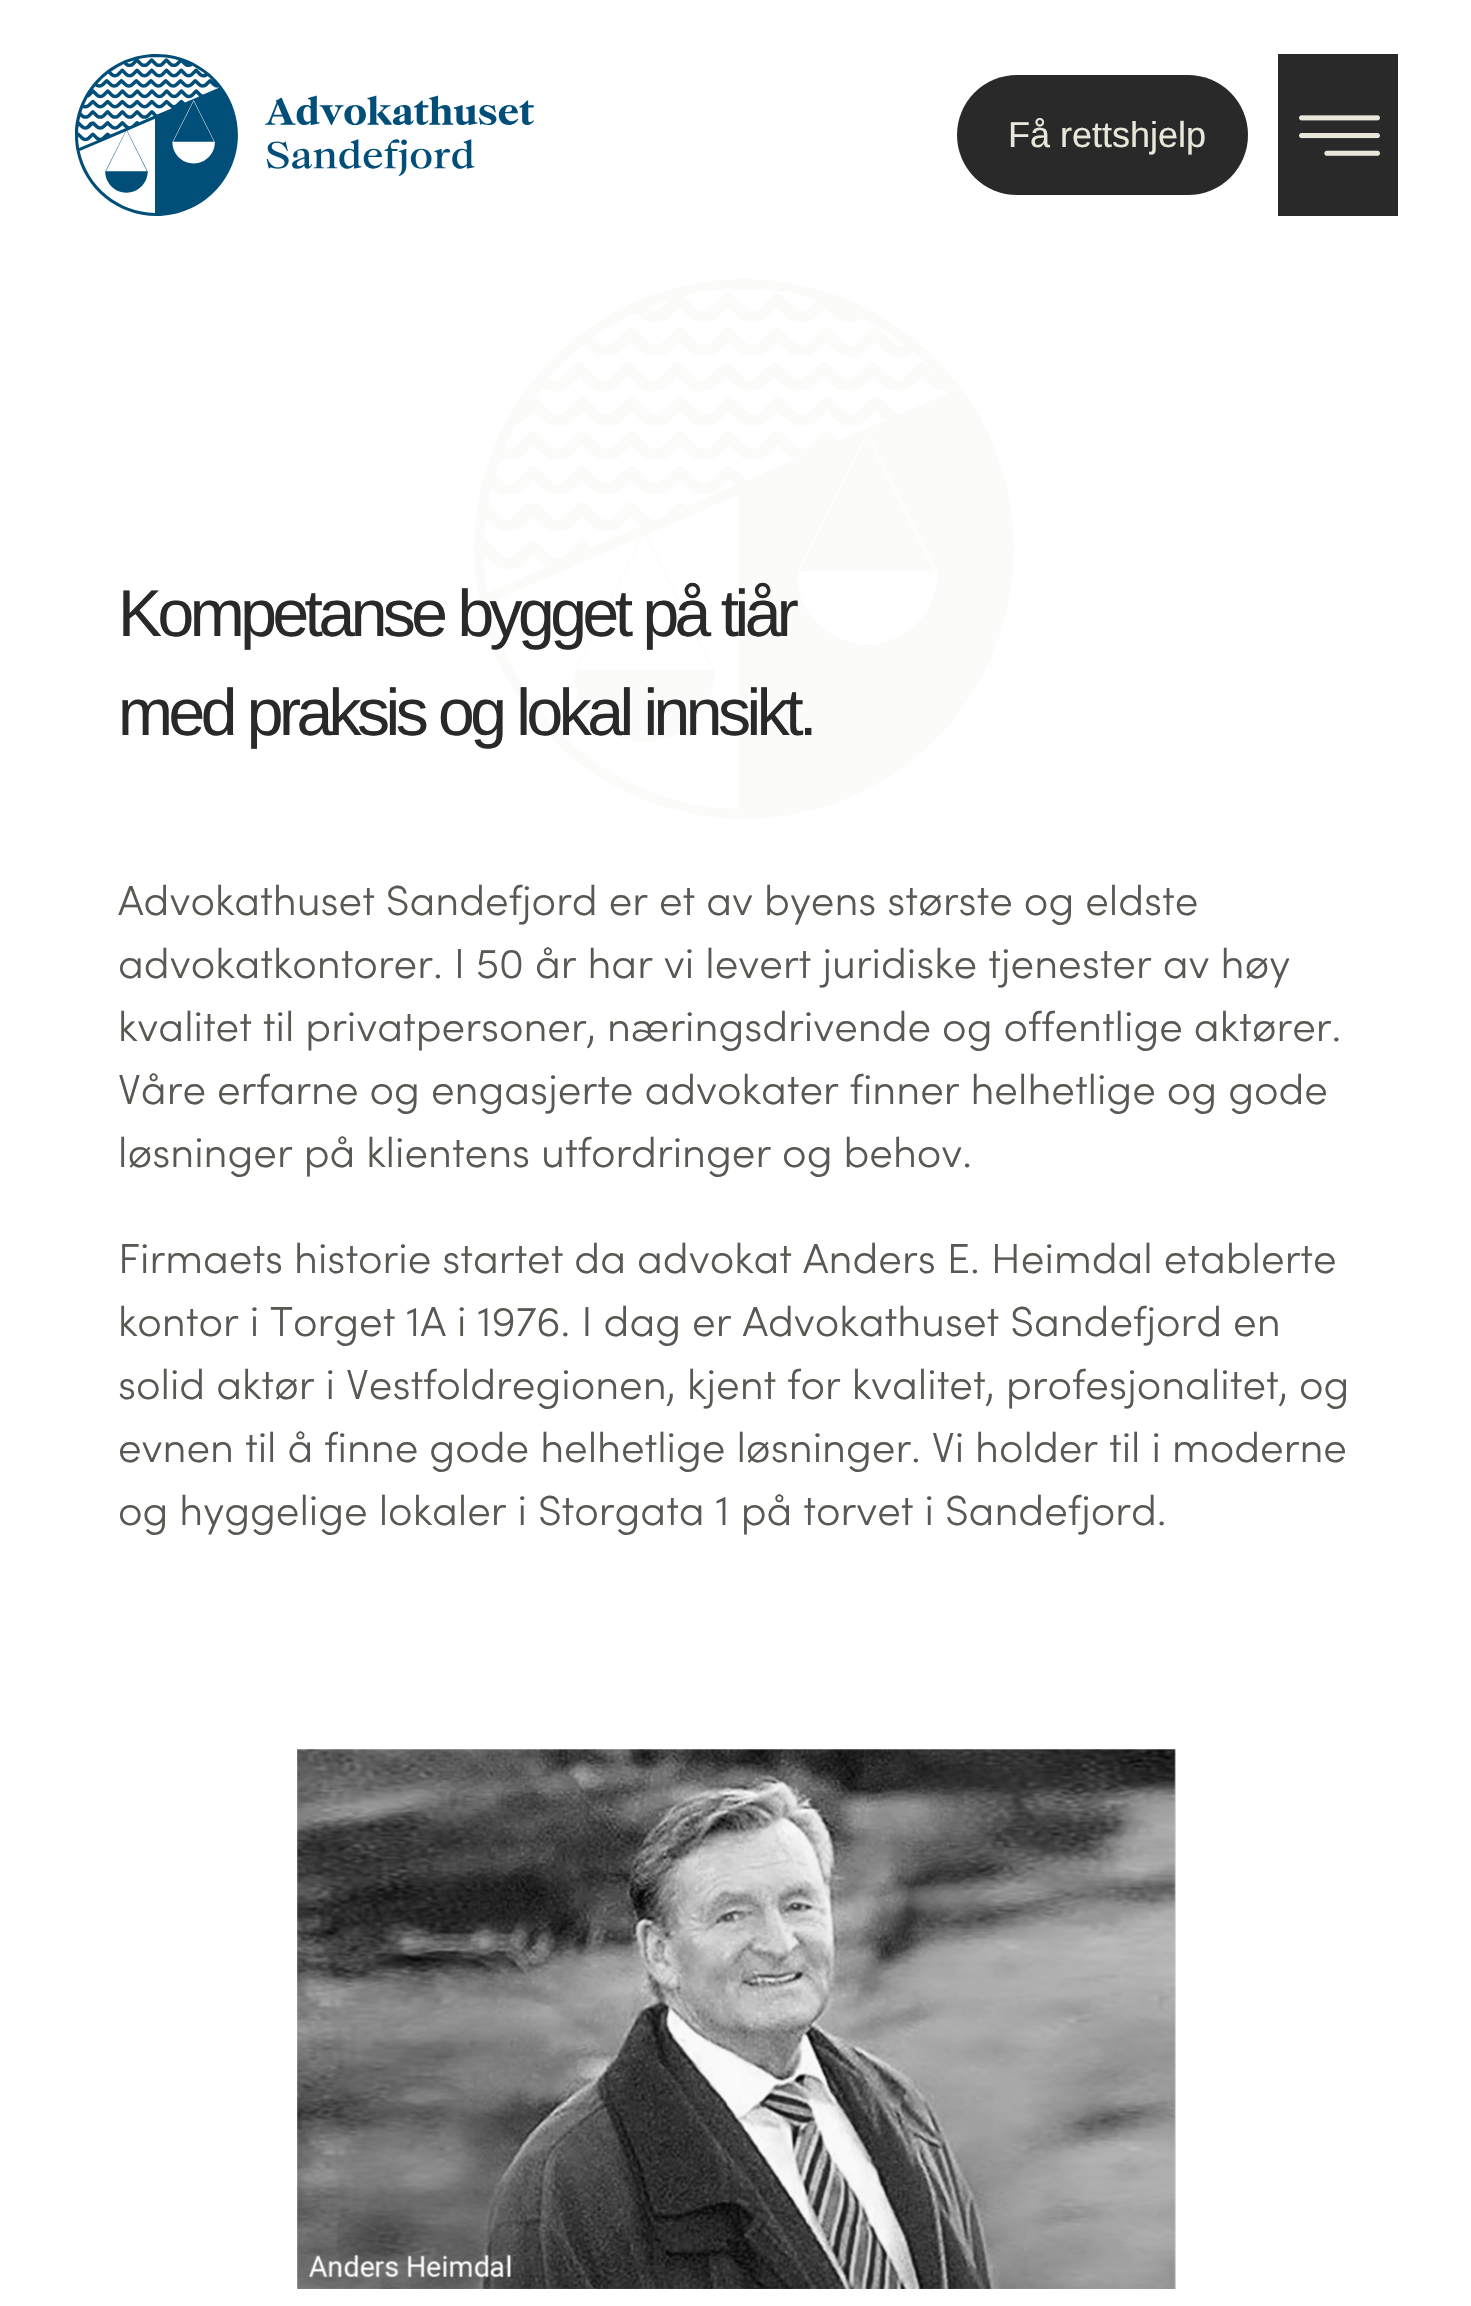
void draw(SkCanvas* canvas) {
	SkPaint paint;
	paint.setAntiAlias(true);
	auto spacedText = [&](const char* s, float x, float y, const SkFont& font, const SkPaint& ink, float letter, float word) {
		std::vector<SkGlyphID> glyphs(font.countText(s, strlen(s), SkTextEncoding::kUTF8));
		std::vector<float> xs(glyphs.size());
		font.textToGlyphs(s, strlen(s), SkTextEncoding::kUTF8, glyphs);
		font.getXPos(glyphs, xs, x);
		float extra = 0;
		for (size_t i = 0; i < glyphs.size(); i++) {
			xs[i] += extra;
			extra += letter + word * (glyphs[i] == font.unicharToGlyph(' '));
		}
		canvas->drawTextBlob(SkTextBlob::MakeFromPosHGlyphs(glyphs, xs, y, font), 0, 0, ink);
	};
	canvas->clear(0xffffffff);
	canvas->drawImageRect(SkImages::DeferredFromEncodedData(SkData::MakeFromFileName("img1.png")), SkRect::MakeXYWH(75, 54, 459, 162), SkSamplingOptions());
	paint.setColor(0xff292929);
	canvas->drawRoundRect(SkRect::MakeXYWH(957, 75, 291, 120), 60, 60, paint);
	SkFont f1(fontMgr->matchFamilyStyle("Liberation Sans", SkFontStyle::Normal()), 36);
	f1.setSubpixel(true);
	paint.setColor(0xffe9e7da);
	canvas->drawString("Få rettshjelp", 1008, 147, f1, paint);
	paint.setColor(0xff292929);
	canvas->drawRect(SkRect::MakeXYWH(1278, 54, 120, 162), paint);
	canvas->drawImageRect(SkImages::DeferredFromEncodedData(SkData::MakeFromFileName("img2.png")), SkRect::MakeXYWH(1299, 115, 81, 41), SkSamplingOptions());
	canvas->drawImageRect(SkImages::DeferredFromEncodedData(SkData::MakeFromFileName("img3.png")), SkRect::MakeXYWH(474, 279, 540, 540), SkSamplingOptions());
	SkFont f2(fontMgr->matchFamilyStyle("Liberation Sans", SkFontStyle::Normal()), 66);
	f2.setSubpixel(true);
	spacedText("Kompetanse bygget på tiår", 118, 636, f2, paint, -4.5, 0);
	spacedText("med praksis og lokal innsikt.", 118, 735, f2, paint, -4.5, 0);
	SkFont f3(fontMgr->matchFamilyStyle("Sofia", SkFontStyle(300, SkFontStyle::kNormal_Width, SkFontStyle::kUpright_Slant)), 42);
	f3.setSubpixel(true);
	paint.setColor(0xff595853);
	canvas->drawString("Advokathuset Sandefjord er et av byens største og eldste", 118, 915, f3, paint);
	canvas->drawString("advokatkontorer. I 50 år har vi levert juridiske tjenester av høy", 118, 978, f3, paint);
	canvas->drawString("kvalitet til privatpersoner, næringsdrivende og offentlige aktører.", 118, 1041, f3, paint);
	canvas->drawString("Våre erfarne og engasjerte advokater finner helhetlige og gode", 118, 1104, f3, paint);
	canvas->drawString("løsninger på klientens utfordringer og behov.", 118, 1167, f3, paint);
	canvas->drawString("Firmaets historie startet da advokat Anders E. Heimdal etablerte", 118, 1273, f3, paint);
	canvas->drawString("kontor i Torget 1A i 1976. I dag er Advokathuset Sandefjord en", 118, 1336, f3, paint);
	canvas->drawString("solid aktør i Vestfoldregionen, kjent for kvalitet, profesjonalitet, og", 118, 1399, f3, paint);
	canvas->drawString("evnen til å finne gode helhetlige løsninger. Vi holder til i moderne", 118, 1462, f3, paint);
	canvas->drawString("og hyggelige lokaler i Storgata 1 på torvet i Sandefjord.", 118, 1525, f3, paint);
	canvas->drawImageRect(SkImages::DeferredFromEncodedData(SkData::MakeFromFileName("img4.png")), SkRect::MakeXYWH(297, 1749, 879, 540), SkSamplingOptions());
}
